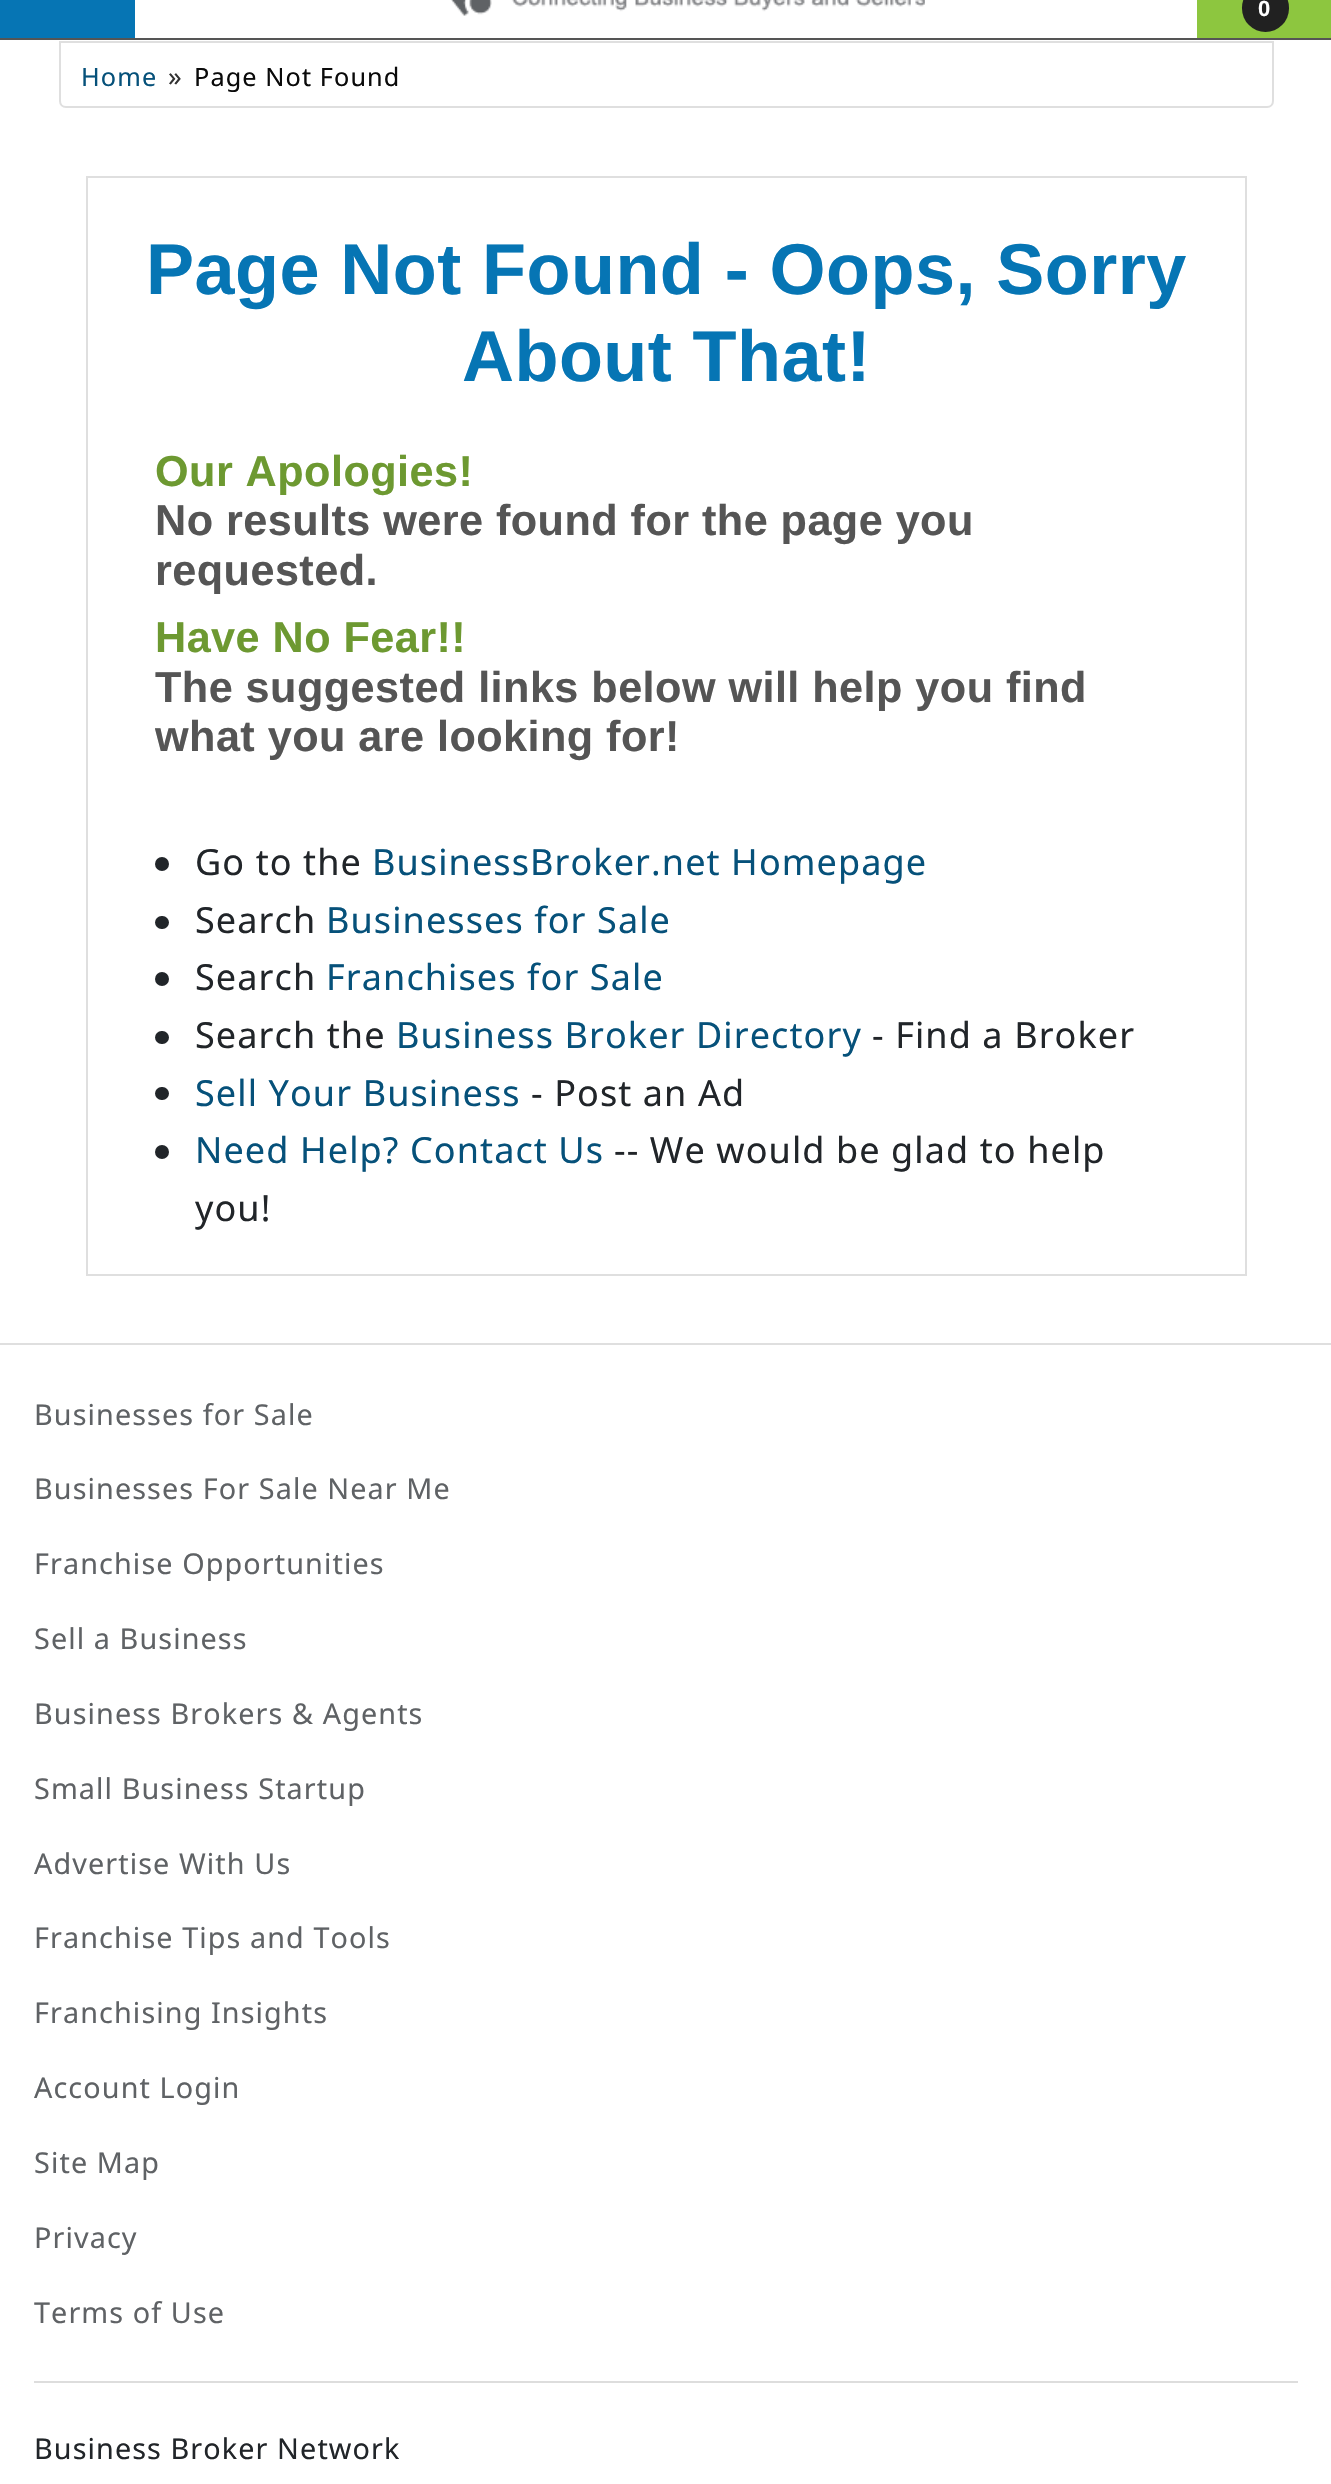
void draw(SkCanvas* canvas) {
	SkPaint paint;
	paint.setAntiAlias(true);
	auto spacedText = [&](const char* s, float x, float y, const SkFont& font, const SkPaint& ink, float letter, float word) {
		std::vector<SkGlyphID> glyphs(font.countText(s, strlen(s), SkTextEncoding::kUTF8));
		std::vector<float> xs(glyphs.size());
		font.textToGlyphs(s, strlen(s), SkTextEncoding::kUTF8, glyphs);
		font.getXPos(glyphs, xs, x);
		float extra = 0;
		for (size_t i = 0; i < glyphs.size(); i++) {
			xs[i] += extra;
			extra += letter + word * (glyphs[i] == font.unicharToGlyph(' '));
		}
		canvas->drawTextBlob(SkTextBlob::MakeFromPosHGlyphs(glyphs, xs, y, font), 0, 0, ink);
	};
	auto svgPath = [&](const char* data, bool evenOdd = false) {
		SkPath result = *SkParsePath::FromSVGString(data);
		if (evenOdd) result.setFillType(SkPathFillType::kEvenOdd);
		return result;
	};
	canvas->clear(0xffffffff);
	paint.setColor(0xff555555);
	canvas->drawRect(SkRect::MakeXYWH(0, 38, 1331, 2), paint);
	paint.setColor(0xff0675b4);
	canvas->drawRect(SkRect::MakeXYWH(0, 0, 135, 38), paint);
	canvas->drawImageRect(SkImages::DeferredFromEncodedData(SkData::MakeFromFileName("img1.png")), SkRect::MakeXYWH(451, 0, 474, 16), SkSamplingOptions());
	paint.setColor(0xff8dc63f);
	canvas->drawRect(SkRect::MakeXYWH(1197, 0, 134, 38), paint);
	paint.setColor(0xff212121);
	canvas->drawRoundRect(SkRect::MakeXYWH(1242, -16, 47, 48), 23.5, 23.5, paint);
	SkFont f1(fontMgr->matchFamilyStyle("Liberation Sans", SkFontStyle::Bold()), 22);
	f1.setSubpixel(true);
	paint.setColor(0xffffffff);
	spacedText("0", 1258, 16, f1, paint, 0.45, 0);
	paint.setStroke(true);
	paint.setStrokeWidth(2);
	paint.setColor(0xffdfdfdf);
	canvas->drawPath(svgPath("M60 42H1273V101C1273 104.5 1270.5 107 1267 107H66C62.5 107 60 104.5 60 101Z"), paint);
	SkFont f2(fontMgr->matchFamilyStyle("Noto Sans", SkFontStyle::Normal()), 25.25);
	f2.setSubpixel(true);
	paint.setStroke(false);
	paint.setColor(0xff06517a);
	spacedText("Home", 81, 86, f2, paint, 1.1, 0);
	SkFont f3(fontMgr->matchFamilyStyle("Noto Sans", SkFontStyle::Normal()), 27);
	f3.setSubpixel(true);
	paint.setColor(0xff333333);
	spacedText("»", 168, 86, f3, paint, 1.1, 0);
	paint.setColor(0xff0a0a0a);
	spacedText("Page Not Found", 194, 86, f2, paint, 1.1, 0);
	paint.setStroke(true);
	paint.setColor(0xffdfdfdf);
	canvas->drawRect(SkRect::MakeXYWH(87, 177, 1159, 1098), paint);
	SkFont f4(fontMgr->matchFamilyStyle("Liberation Sans", SkFontStyle::Bold()), 72);
	f4.setSubpixel(true);
	paint.setStroke(false);
	paint.setColor(0xff0675b4);
	spacedText("Page Not Found - Oops, Sorry", 146, 294, f4, paint, 0.45, 0);
	spacedText("About That!", 462, 381, f4, paint, 0.45, 0);
	SkFont f5(fontMgr->matchFamilyStyle("Liberation Sans", SkFontStyle::Bold()), 43.2);
	f5.setSubpixel(true);
	paint.setColor(0xff6d9931);
	spacedText("Our Apologies!", 155, 486, f5, paint, 0.45, 0);
	paint.setColor(0xff555555);
	spacedText("No results were found for the page you", 155, 535, f5, paint, 0.45, 0);
	spacedText("requested.", 155, 585, f5, paint, 0.45, 0);
	paint.setColor(0xff6d9931);
	spacedText("Have No Fear!!", 155, 652, f5, paint, 0.45, 0);
	paint.setColor(0xff555555);
	spacedText("The suggested links below will help you find", 155, 702, f5, paint, 0.45, 0);
	spacedText("what you are looking for!", 155, 751, f5, paint, 0.45, 0);
	paint.setColor(0xff212529);
	canvas->drawCircle(162, 864, 7, paint);
	SkFont f6(fontMgr->matchFamilyStyle("Noto Sans", SkFontStyle::Normal()), 36);
	f6.setSubpixel(true);
	spacedText("Go to the", 195, 875, f6, paint, 1.1, 0);
	paint.setColor(0xff06517a);
	spacedText("BusinessBroker.net Homepage", 372, 875, f6, paint, 1.1, 0);
	paint.setColor(0xff212529);
	canvas->drawRoundRect(SkRect::MakeXYWH(155, 916, 14, 13), 6.5, 6.5, paint);
	spacedText("Search", 195, 933, f6, paint, 1.1, 0);
	paint.setColor(0xff06517a);
	spacedText("Businesses for Sale", 326, 933, f6, paint, 1.1, 0);
	paint.setColor(0xff212529);
	canvas->drawCircle(162, 979, 7, paint);
	spacedText("Search", 195, 990, f6, paint, 1.1, 0);
	paint.setColor(0xff06517a);
	spacedText("Franchises for Sale", 326, 990, f6, paint, 1.1, 0);
	paint.setColor(0xff212529);
	canvas->drawRoundRect(SkRect::MakeXYWH(155, 1031, 14, 13), 6.5, 6.5, paint);
	spacedText("Search the", 195, 1048, f6, paint, 1.1, 0);
	paint.setColor(0xff06517a);
	spacedText("Business Broker Directory", 396, 1048, f6, paint, 1.1, 0);
	paint.setColor(0xff212529);
	spacedText("- Find a Broker", 872, 1048, f6, paint, 1.1, 0);
	canvas->drawRoundRect(SkRect::MakeXYWH(155, 1087, 14, 13), 6.5, 6.5, paint);
	paint.setColor(0xff06517a);
	spacedText("Sell Your Business", 195, 1106, f6, paint, 1.1, 0);
	paint.setColor(0xff212529);
	spacedText("- Post an Ad", 531, 1106, f6, paint, 1.1, 0);
	canvas->drawCircle(162, 1152, 7, paint);
	paint.setColor(0xff06517a);
	spacedText("Need Help? Contact Us", 195, 1163, f6, paint, 1.1, 0);
	paint.setColor(0xff212529);
	spacedText("-- We would be glad to help", 614, 1163, f6, paint, 1.1, 0);
	spacedText("you!", 195, 1221, f6, paint, 1.1, 0);
	paint.setColor(0xffdfdfdf);
	canvas->drawRect(SkRect::MakeXYWH(0, 1343, 1331, 2), paint);
	SkFont f7(fontMgr->matchFamilyStyle("Noto Sans", SkFontStyle::Normal()), 28.75);
	f7.setSubpixel(true);
	paint.setColor(0xff5f6265);
	spacedText("Businesses for Sale", 34, 1425, f7, paint, 1.1, 0);
	spacedText("Businesses For Sale Near Me", 34, 1499, f7, paint, 1.1, 0);
	spacedText("Franchise Opportunities", 34, 1574, f7, paint, 1.1, 0);
	spacedText("Sell a Business", 34, 1649, f7, paint, 1.1, 0);
	spacedText("Business Brokers & Agents", 34, 1724, f7, paint, 1.1, 0);
	spacedText("Small Business Startup", 34, 1799, f7, paint, 1.1, 0);
	spacedText("Advertise With Us", 34, 1874, f7, paint, 1.1, 0);
	spacedText("Franchise Tips and Tools", 34, 1948, f7, paint, 1.1, 0);
	spacedText("Franchising Insights", 34, 2023, f7, paint, 1.1, 0);
	spacedText("Account Login", 34, 2098, f7, paint, 1.1, 0);
	spacedText("Site Map", 34, 2173, f7, paint, 1.1, 0);
	spacedText("Privacy", 34, 2248, f7, paint, 1.1, 0);
	spacedText("Terms of Use", 34, 2323, f7, paint, 1.1, 0);
	paint.setColor(0xffdddddd);
	canvas->drawRect(SkRect::MakeXYWH(34, 2381, 1264, 2), paint);
	paint.setColor(0xff212529);
	spacedText("Business Broker Network", 34, 2459, f7, paint, 1.1, 0);
}
